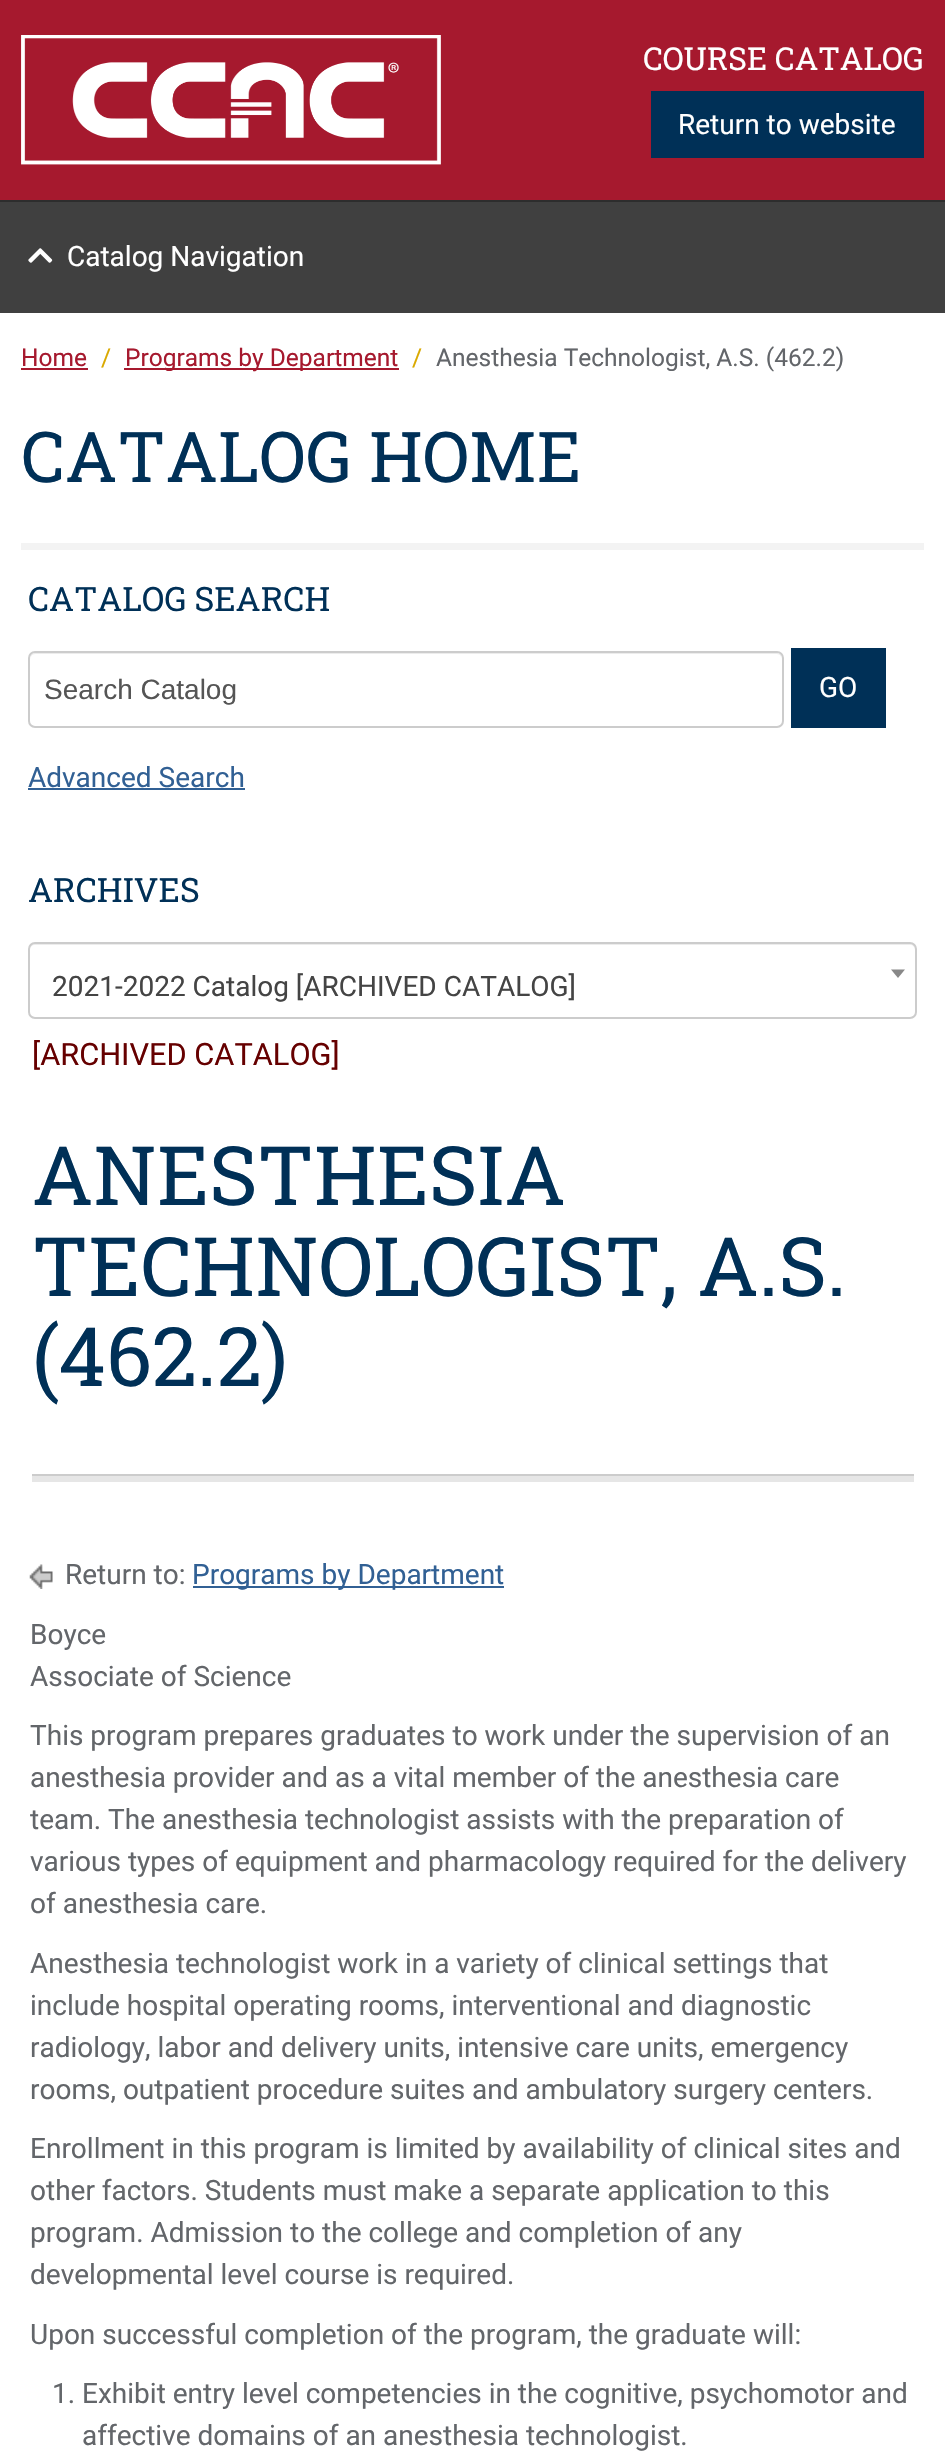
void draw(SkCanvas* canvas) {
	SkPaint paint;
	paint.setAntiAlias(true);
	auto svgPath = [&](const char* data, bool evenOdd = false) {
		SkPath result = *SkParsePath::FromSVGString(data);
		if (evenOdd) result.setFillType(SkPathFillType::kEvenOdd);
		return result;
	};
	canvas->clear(0xffffffff);
	paint.setColor(0xff404040);
	canvas->drawRect(SkRect::MakeXYWH(0, 202, 945, 111), paint);
	paint.setColor(0xff2d2d2d);
	canvas->drawRect(SkRect::MakeXYWH(0, 200, 945, 2), paint);
	paint.setColor(0xffa6192e);
	canvas->drawRect(SkRect::MakeXYWH(0, 0, 945, 200), paint);
	canvas->drawImageRect(SkImages::DeferredFromEncodedData(SkData::MakeFromFileName("img1.png")), SkRect::MakeXYWH(21, 35, 420, 130), SkSamplingOptions());
	SkFont f1(fontMgr->matchFamilyStyle("Roboto Slab", SkFontStyle::Normal()), 31.5);
	f1.setSubpixel(true);
	paint.setColor(0xffffffff);
	canvas->drawString("COURSE CATALOG", 643, 70, f1, paint);
	paint.setColor(0xff003057);
	canvas->drawRect(SkRect::MakeXYWH(651, 91, 273, 67), paint);
	SkFont f2(fontMgr->matchFamilyStyle("Roboto", SkFontStyle::Normal()), 28);
	f2.setSubpixel(true);
	paint.setColor(0xffffffff);
	canvas->drawString("Return to website", 678, 134, f2, paint);
	canvas->drawImageRect(SkImages::DeferredFromEncodedData(SkData::MakeFromFileName("img2.png")), SkRect::MakeXYWH(28, 248, 25, 15), SkSamplingOptions());
	canvas->drawString("Catalog Navigation", 67, 266, f2, paint);
	SkFont f3(fontMgr->matchFamilyStyle("Roboto", SkFontStyle::Normal()), 24.5);
	f3.setSubpixel(true);
	paint.setColor(0xffa6192e);
	canvas->drawString("Home", 21, 366, f3, paint);
	canvas->drawRect(SkRect::MakeXYWH(21, 368, 67, 2), paint);
	paint.setColor(0xffdaa900);
	canvas->drawString("/", 101, 366, f3, paint);
	paint.setColor(0xffa6192e);
	canvas->drawRect(SkRect::MakeXYWH(124, 368, 275, 2), paint);
	canvas->drawString("Programs by Department", 125, 366, f3, paint);
	paint.setColor(0xffdaa900);
	canvas->drawString("/", 412, 366, f3, paint);
	paint.setColor(0xff63666a);
	canvas->drawString("Anesthesia Technologist, A.S. (462.2)", 436, 366, f3, paint);
	paint.setColor(0xfff3f3f3);
	canvas->drawRect(SkRect::MakeXYWH(21, 543, 903, 7), paint);
	SkFont f4(fontMgr->matchFamilyStyle("Roboto Slab", SkFontStyle::Normal()), 70);
	f4.setSubpixel(true);
	paint.setColor(0xff003057);
	canvas->drawString("CATALOG HOME", 21, 482, f4, paint);
	SkFont f5(fontMgr->matchFamilyStyle("Roboto Slab", SkFontStyle::Normal()), 33.5);
	f5.setSubpixel(true);
	canvas->drawString("CATALOG SEARCH", 28, 611, f5, paint);
	paint.setColor(0xffececec);
	canvas->drawPath(svgPath("M35 654H777C780 654 782 657 782 660C782 657 781 653 777 653H35C31 653 30 657 30 660C30 657 32 654 35 654Z"), paint);
	paint.setStroke(true);
	paint.setStrokeWidth(2);
	paint.setColor(0xffcccccc);
	canvas->drawRoundRect(SkRect::MakeXYWH(29, 652, 754, 75), 6, 6, paint);
	SkFont f6(fontMgr->matchFamilyStyle("Liberation Sans", SkFontStyle::Normal()), 28);
	f6.setSubpixel(true);
	paint.setStroke(false);
	paint.setColor(0xff555555);
	canvas->drawString("Search Catalog", 44, 699, f6, paint);
	paint.setColor(0xff003057);
	canvas->drawRect(SkRect::MakeXYWH(791, 648, 95, 80), paint);
	paint.setColor(0xffffffff);
	canvas->drawString("GO", 819, 697, f2, paint);
	paint.setColor(0xff316094);
	canvas->drawString("Advanced Search", 28, 787, f2, paint);
	canvas->drawRect(SkRect::MakeXYWH(28, 788, 217, 2), paint);
	paint.setColor(0xff003057);
	canvas->drawString("ARCHIVES", 28, 902, f5, paint);
	paint.setColor(0xffececec);
	canvas->drawPath(svgPath("M35 945H910C913 945 915 947 915 950V948C915 945 913 943 910 943H35C32 943 30 945 30 948V950C30 947 32 945 35 945Z"), paint);
	paint.setStroke(true);
	paint.setColor(0xffcccccc);
	canvas->drawRoundRect(SkRect::MakeXYWH(29, 943, 887, 75), 6, 6, paint);
	paint.setStroke(false);
	paint.setColor(0xff444444);
	canvas->drawString("2021-2022 Catalog [ARCHIVED CATALOG]", 52, 996, f2, paint);
	paint.setColor(0xff888888);
	canvas->drawPath(svgPath("M891 969.5H905L898 978Z"), paint);
	SkFont f7(fontMgr->matchFamilyStyle("Roboto", SkFontStyle::Normal()), 30.75);
	f7.setSubpixel(true);
	paint.setColor(0xff660000);
	canvas->drawString("[ARCHIVED CATALOG]", 32, 1065, f7, paint);
	SkFont f8(fontMgr->matchFamilyStyle("Roboto Slab", SkFontStyle::Normal()), 81.9);
	f8.setSubpixel(true);
	paint.setColor(0xff003057);
	canvas->drawString("ANESTHESIA", 32, 1205, f8, paint);
	canvas->drawString("TECHNOLOGIST, A.S.", 32, 1296, f8, paint);
	canvas->drawString("(462.2)", 32, 1386, f8, paint);
	paint.setColor(0xffe6e6e6);
	canvas->drawRect(SkRect::MakeXYWH(32, 1476, 882, 6), paint);
	paint.setColor(0xffcccccc);
	canvas->drawRect(SkRect::MakeXYWH(32, 1474, 882, 2), paint);
	canvas->drawImageRect(SkImages::DeferredFromEncodedData(SkData::MakeFromFileName("img3.png")), SkRect::MakeXYWH(29, 1564, 24, 25), SkSamplingOptions());
	paint.setColor(0xff63666a);
	canvas->drawString("Return to:", 65, 1584, f2, paint);
	paint.setColor(0xff316094);
	canvas->drawRect(SkRect::MakeXYWH(193, 1586, 311, 2), paint);
	canvas->drawString("Programs by Department", 192, 1584, f2, paint);
	paint.setColor(0xff63666a);
	canvas->drawString("Boyce", 30, 1644, f2, paint);
	canvas->drawString("Associate of Science", 30, 1686, f2, paint);
	canvas->drawString("This program prepares graduates to work under the supervision of an", 30, 1745, f2, paint);
	canvas->drawString("anesthesia provider and as a vital member of the anesthesia care", 30, 1787, f2, paint);
	canvas->drawString("team. The anesthesia technologist assists with the preparation of", 30, 1829, f2, paint);
	canvas->drawString("various types of equipment and pharmacology required for the delivery", 30, 1871, f2, paint);
	canvas->drawString("of anesthesia care.", 30, 1913, f2, paint);
	canvas->drawString("Anesthesia technologist work in a variety of clinical settings that", 30, 1973, f2, paint);
	canvas->drawString("include hospital operating rooms, interventional and diagnostic", 30, 2015, f2, paint);
	canvas->drawString("radiology, labor and delivery units, intensive care units, emergency", 30, 2057, f2, paint);
	canvas->drawString("rooms, outpatient procedure suites and ambulatory surgery centers.", 30, 2099, f2, paint);
	canvas->drawString("Enrollment in this program is limited by availability of clinical sites and", 30, 2158, f2, paint);
	canvas->drawString("other factors. Students must make a separate application to this", 30, 2200, f2, paint);
	canvas->drawString("program. Admission to the college and completion of any", 30, 2242, f2, paint);
	canvas->drawString("developmental level course is required.", 30, 2284, f2, paint);
	canvas->drawString("Upon successful completion of the program, the graduate will:", 30, 2344, f2, paint);
	canvas->drawString("1. Exhibit entry level competencies in the cognitive, psychomotor and", 52, 2403, f2, paint);
	canvas->drawString("affective domains of an anesthesia technologist.", 82, 2445, f2, paint);
}
